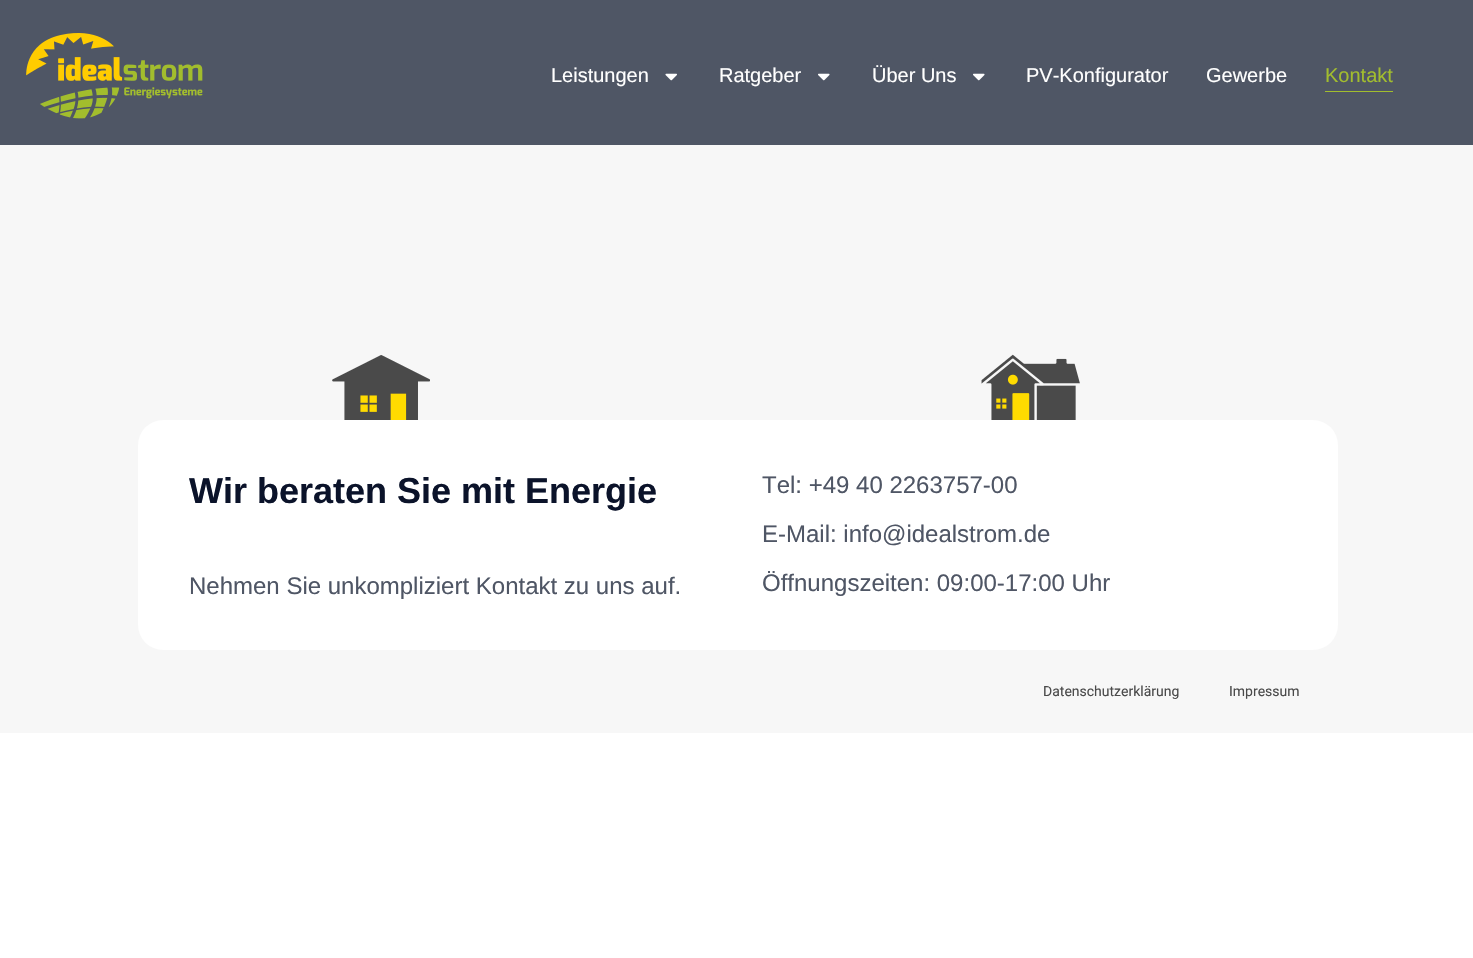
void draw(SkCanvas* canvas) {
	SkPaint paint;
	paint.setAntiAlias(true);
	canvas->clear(0xffffffff);
	paint.setColor(0xff4f5665);
	canvas->drawRect(SkRect::MakeXYWH(0, 0, 1473, 145), paint);
	canvas->drawImageRect(SkImages::DeferredFromEncodedData(SkData::MakeFromFileName("img1.png")), SkRect::MakeXYWH(26, 33, 177, 86), SkSamplingOptions());
	SkFont f1(fontMgr->matchFamilyStyle("Liberation Sans", SkFontStyle::Normal()), 20);
	f1.setSubpixel(true);
	paint.setColor(0xffffffff);
	canvas->drawString("Leistungen", 551, 82, f1, paint);
	canvas->drawImageRect(SkImages::DeferredFromEncodedData(SkData::MakeFromFileName("img2.png")), SkRect::MakeXYWH(665, 73, 12, 8), SkSamplingOptions());
	canvas->drawString("Ratgeber", 719, 82, f1, paint);
	canvas->drawImageRect(SkImages::DeferredFromEncodedData(SkData::MakeFromFileName("img3.png")), SkRect::MakeXYWH(818, 73, 12, 8), SkSamplingOptions());
	canvas->drawString("Über Uns", 872, 82, f1, paint);
	canvas->drawImageRect(SkImages::DeferredFromEncodedData(SkData::MakeFromFileName("img3.png")), SkRect::MakeXYWH(973, 73, 12, 8), SkSamplingOptions());
	canvas->drawString("PV-Konfigurator", 1026, 82, f1, paint);
	canvas->drawString("Gewerbe", 1206, 82, f1, paint);
	paint.setColor(0xffa2bd2e);
	canvas->drawString("Kontakt", 1325, 82, f1, paint);
	canvas->drawRect(SkRect::MakeXYWH(1325, 91, 68, 1), paint);
	paint.setColor(0xfff7f7f7);
	canvas->drawRect(SkRect::MakeXYWH(0, 145, 1473, 588), paint);
	canvas->drawImageRect(SkImages::DeferredFromEncodedData(SkData::MakeFromFileName("img4.png")), SkRect::MakeXYWH(332, 355, 98, 65), SkSamplingOptions());
	canvas->drawImageRect(SkImages::DeferredFromEncodedData(SkData::MakeFromFileName("img5.png")), SkRect::MakeXYWH(981, 354, 99, 66), SkSamplingOptions());
	paint.setColor(0xffffffff);
	canvas->drawRoundRect(SkRect::MakeXYWH(138, 420, 1200, 230), 25, 25, paint);
	SkFont f2(fontMgr->matchFamilyStyle("Liberation Sans", SkFontStyle::Bold()), 36);
	f2.setSubpixel(true);
	paint.setColor(0xff0b132a);
	canvas->drawString("Wir beraten Sie mit Energie", 189, 503, f2, paint);
	SkFont f3(fontMgr->matchFamilyStyle("Liberation Sans", SkFontStyle::Normal()), 24);
	f3.setSubpixel(true);
	paint.setColor(0xff4f5665);
	canvas->drawString("Nehmen Sie unkompliziert Kontakt zu uns auf.", 189, 594, f3, paint);
	canvas->drawString("Tel: +49 40 2263757-00", 762, 493, f3, paint);
	canvas->drawString("E-Mail: info@idealstrom.de", 762, 542, f3, paint);
	canvas->drawString("Öffnungszeiten: 09:00-17:00 Uhr", 762, 591, f3, paint);
	SkFont f4(fontMgr->matchFamilyStyle("Roboto", SkFontStyle::Normal()), 14);
	f4.setSubpixel(true);
	paint.setColor(0xff4a4a4a);
	canvas->drawString("Datenschutzerklärung", 1043, 696, f4, paint);
	canvas->drawString("Impressum", 1229, 696, f4, paint);
}
